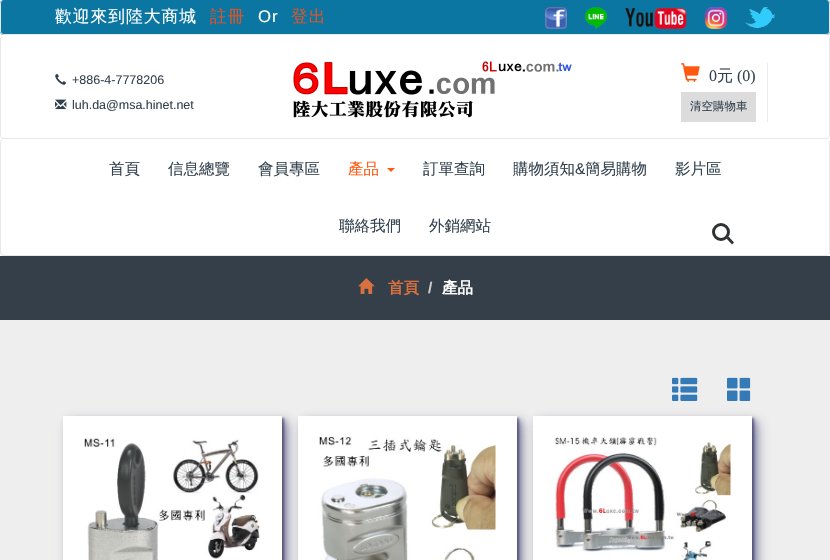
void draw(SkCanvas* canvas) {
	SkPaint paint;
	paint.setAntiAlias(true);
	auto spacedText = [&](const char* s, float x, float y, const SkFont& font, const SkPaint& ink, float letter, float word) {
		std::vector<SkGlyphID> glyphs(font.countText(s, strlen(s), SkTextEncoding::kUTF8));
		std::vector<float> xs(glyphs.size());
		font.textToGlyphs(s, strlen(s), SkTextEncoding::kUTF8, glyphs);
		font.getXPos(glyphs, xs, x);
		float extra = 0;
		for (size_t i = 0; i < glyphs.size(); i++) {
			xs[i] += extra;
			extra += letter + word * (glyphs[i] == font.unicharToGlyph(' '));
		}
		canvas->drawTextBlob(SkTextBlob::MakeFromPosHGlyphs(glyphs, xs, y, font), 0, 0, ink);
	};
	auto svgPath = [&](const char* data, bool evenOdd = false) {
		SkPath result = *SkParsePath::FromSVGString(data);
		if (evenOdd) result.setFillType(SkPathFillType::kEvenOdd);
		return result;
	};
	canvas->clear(0xffffffff);
	paint.setColor(0xff0c76a3);
	canvas->drawRoundRect(SkRect::MakeXYWH(0, 0, 830, 35), 4, 4, paint);
	paint.setColor(0xffe7e7e7);
	canvas->drawPath(svgPath("M4 0H826C828 0 830 2 830 4V31C830 33 828 35 826 35H4C2 35 0 33 0 31V4C0 2 2 0 4 0ZM4 0H826C828 0 829 2 829 4V31C829 33 828 34 826 34H4C2 34 1 33 1 31V4C1 2 2 0 4 0Z", true), paint);
	SkFont f1(fontMgr->matchFamilyStyle("WenQuanYi Zen Hei", SkFontStyle(500, SkFontStyle::kNormal_Width, SkFontStyle::kUpright_Slant)), 16.75);
	f1.setSubpixel(true);
	paint.setColor(0xffffffff);
	spacedText("歡迎來到陸大商城", 55, 22, f1, paint, 1, 0);
	paint.setColor(0xffdf5427);
	spacedText("註冊", 210, 22, f1, paint, 1, 0);
	SkFont f2(fontMgr->matchFamilyStyle("Liberation Sans", SkFontStyle::Normal()), 16.75);
	f2.setSubpixel(true);
	paint.setColor(0xffffffff);
	spacedText("Or", 258, 22, f2, paint, 1, 0);
	paint.setColor(0xffdf5427);
	spacedText("登出", 291, 22, f1, paint, 1, 0);
	canvas->drawImageRect(SkImages::DeferredFromEncodedData(SkData::MakeFromFileName("img1.png")), SkRect::MakeXYWH(545, 7, 22, 22), SkSamplingOptions());
	canvas->drawImageRect(SkImages::DeferredFromEncodedData(SkData::MakeFromFileName("img2.png")), SkRect::MakeXYWH(585, 7, 22, 22), SkSamplingOptions());
	canvas->drawImageRect(SkImages::DeferredFromEncodedData(SkData::MakeFromFileName("img3.png")), SkRect::MakeXYWH(625, 7, 62, 22), SkSamplingOptions());
	canvas->drawImageRect(SkImages::DeferredFromEncodedData(SkData::MakeFromFileName("img4.png")), SkRect::MakeXYWH(705, 7, 22, 22), SkSamplingOptions());
	canvas->drawImageRect(SkImages::DeferredFromEncodedData(SkData::MakeFromFileName("img5.png")), SkRect::MakeXYWH(745, 7, 30, 21), SkSamplingOptions());
	paint.setColor(0xffe7e7e7);
	canvas->drawPath(svgPath("M4 35H826C828 35 830 37 830 39V135C830 137 828 139 826 139H4C2 139 0 137 0 135V39C0 37 2 35 4 35ZM4 35H826C828 35 829 37 829 39V135C829 137 828 138 826 138H4C2 138 1 137 1 135V39C1 37 2 35 4 35Z", true), paint);
	canvas->drawImageRect(SkImages::DeferredFromEncodedData(SkData::MakeFromFileName("img6.png")), SkRect::MakeXYWH(55, 73, 12, 12), SkSamplingOptions());
	SkFont f3(fontMgr->matchFamilyStyle("Liberation Sans", SkFontStyle::Normal()), 12.5);
	f3.setSubpixel(true);
	paint.setColor(0xff33414e);
	canvas->drawString("+886-4-7778206", 72, 84, f3, paint);
	canvas->drawImageRect(SkImages::DeferredFromEncodedData(SkData::MakeFromFileName("img7.png")), SkRect::MakeXYWH(55, 99, 12, 11), SkSamplingOptions());
	canvas->drawString("luh.da@msa.hinet.net", 72, 109, f3, paint);
	canvas->drawImageRect(SkImages::DeferredFromEncodedData(SkData::MakeFromFileName("img8.png")), SkRect::MakeXYWH(293, 61, 279, 57), SkSamplingOptions());
	paint.setColor(0xffececec);
	canvas->drawRect(SkRect::MakeXYWH(767, 63, 1, 59), paint);
	canvas->drawImageRect(SkImages::DeferredFromEncodedData(SkData::MakeFromFileName("img9.png")), SkRect::MakeXYWH(681, 63, 19, 19), SkSamplingOptions());
	SkFont f4(fontMgr->matchFamilyStyle("Liberation Serif", SkFontStyle::Normal()), 16);
	f4.setSubpixel(true);
	paint.setColor(0xff33414e);
	canvas->drawString("0", 709, 81, f4, paint);
	SkFont f5(fontMgr->matchFamilyStyle("WenQuanYi Zen Hei", SkFontStyle(500, SkFontStyle::kNormal_Width, SkFontStyle::kUpright_Slant)), 16);
	f5.setSubpixel(true);
	canvas->drawString("元", 717, 81, f5, paint);
	canvas->drawString("(0)", 737, 81, f4, paint);
	paint.setColor(0xffdcdcdc);
	canvas->drawRect(SkRect::MakeXYWH(681, 92, 75, 30), paint);
	SkFont f6(fontMgr->matchFamilyStyle("WenQuanYi Zen Hei", SkFontStyle(500, SkFontStyle::kNormal_Width, SkFontStyle::kUpright_Slant)), 11.5);
	f6.setSubpixel(true);
	paint.setColor(0xff33414e);
	canvas->drawString("清空購物車", 690, 110, f6, paint);
	paint.setColor(0xffe7e7e7);
	canvas->drawPath(svgPath("M4 139H826C828 139 830 141 830 143V252C830 254 828 256 826 256H4C2 256 0 254 0 252V143C0 141 2 139 4 139ZM4 139H826C828 139 829 141 829 143V252C829 254 828 255 826 255H4C2 255 1 254 1 252V143C1 141 2 139 4 139Z", true), paint);
	SkFont f7(fontMgr->matchFamilyStyle("WenQuanYi Zen Hei", SkFontStyle(500, SkFontStyle::kNormal_Width, SkFontStyle::kUpright_Slant)), 15.5);
	f7.setSubpixel(true);
	paint.setColor(0xff33414e);
	canvas->drawString("首頁", 109, 174, f7, paint);
	canvas->drawString("信息總覽", 168, 174, f7, paint);
	canvas->drawString("會員專區", 258, 174, f7, paint);
	paint.setColor(0xffff590f);
	canvas->drawString("產品", 348, 174, f7, paint);
	canvas->drawPath(svgPath("M387 168H395L391 172Z"), paint);
	paint.setColor(0xff33414e);
	canvas->drawString("訂單查詢", 423, 174, f7, paint);
	canvas->drawString("購物須知", 513, 174, f7, paint);
	SkFont f8(fontMgr->matchFamilyStyle("Liberation Sans", SkFontStyle::Normal()), 15.5);
	f8.setSubpixel(true);
	canvas->drawString("&", 575, 174, f8, paint);
	canvas->drawString("簡易購物", 585, 174, f7, paint);
	canvas->drawString("影片區", 675, 174, f7, paint);
	canvas->drawString("聯絡我們", 339, 231, f7, paint);
	canvas->drawString("外銷網站", 429, 231, f7, paint);
	paint.setStroke(true);
	paint.setStrokeWidth(3);
	paint.setColor(0xff2e3233);
	canvas->drawCircle(721, 232, 7.5, paint);
	paint.setStroke(false);
	canvas->drawPath(svgPath("M728.5 236.5L734 242.5L732 244.5L726.5 238.5Z"), paint);
	paint.setColor(0xff353f49);
	canvas->drawRect(SkRect::MakeXYWH(0, 256, 830, 64), paint);
	canvas->drawImageRect(SkImages::DeferredFromEncodedData(SkData::MakeFromFileName("img10.png")), SkRect::MakeXYWH(358, 278, 17, 16), SkSamplingOptions());
	SkFont f9(fontMgr->matchFamilyStyle("WenQuanYi Zen Hei", SkFontStyle::Bold()), 15.5);
	f9.setSubpixel(true);
	paint.setColor(0xffd8703f);
	canvas->drawString("首頁", 388, 293, f9, paint);
	SkFont f10(fontMgr->matchFamilyStyle("Liberation Sans", SkFontStyle::Bold()), 15.5);
	f10.setSubpixel(true);
	paint.setColor(0xffcccccc);
	canvas->drawString("/", 428, 293, f10, paint);
	paint.setColor(0xffffffff);
	canvas->drawString("產品", 442, 293, f9, paint);
	paint.setColor(0xffeeeeee);
	canvas->drawRect(SkRect::MakeXYWH(0, 320, 830, 240), paint);
	canvas->drawImageRect(SkImages::DeferredFromEncodedData(SkData::MakeFromFileName("img11.png")), SkRect::MakeXYWH(672, 377, 26, 24), SkSamplingOptions());
	canvas->drawImageRect(SkImages::DeferredFromEncodedData(SkData::MakeFromFileName("img12.png")), SkRect::MakeXYWH(727, 377, 24, 24), SkSamplingOptions());
	paint.setColor(0x66333366);
	paint.setMaskFilter(SkMaskFilter::MakeBlur(kNormal_SkBlurStyle, 6));
	canvas->drawRect(SkRect::MakeXYWH(69, 422, 219, 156), paint);
	paint.setMaskFilter(nullptr);
	paint.setMaskFilter(SkMaskFilter::MakeBlur(kNormal_SkBlurStyle, 3));
	canvas->drawRect(SkRect::MakeXYWH(67, 420, 219, 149), paint);
	paint.setMaskFilter(nullptr);
	paint.setColor(0x99333366);
	paint.setMaskFilter(SkMaskFilter::MakeBlur(kNormal_SkBlurStyle, 1));
	canvas->drawRect(SkRect::MakeXYWH(65, 418, 219, 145), paint);
	paint.setMaskFilter(nullptr);
	paint.setColor(0xffffffff);
	canvas->drawRect(SkRect::MakeXYWH(63, 416, 219, 144), paint);
	canvas->drawImageRect(SkImages::DeferredFromEncodedData(SkData::MakeFromFileName("img13.png")), SkRect::MakeXYWH(84, 438, 176, 122), SkSamplingOptions());
	paint.setColor(0x66333366);
	paint.setMaskFilter(SkMaskFilter::MakeBlur(kNormal_SkBlurStyle, 6));
	canvas->drawRect(SkRect::MakeXYWH(304, 422, 219, 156), paint);
	paint.setMaskFilter(nullptr);
	paint.setMaskFilter(SkMaskFilter::MakeBlur(kNormal_SkBlurStyle, 3));
	canvas->drawRect(SkRect::MakeXYWH(302, 420, 219, 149), paint);
	paint.setMaskFilter(nullptr);
	paint.setColor(0x99333366);
	paint.setMaskFilter(SkMaskFilter::MakeBlur(kNormal_SkBlurStyle, 1));
	canvas->drawRect(SkRect::MakeXYWH(300, 418, 219, 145), paint);
	paint.setMaskFilter(nullptr);
	paint.setColor(0xffffffff);
	canvas->drawRect(SkRect::MakeXYWH(298, 416, 219, 144), paint);
	canvas->drawImageRect(SkImages::DeferredFromEncodedData(SkData::MakeFromFileName("img14.png")), SkRect::MakeXYWH(319, 437, 177, 123), SkSamplingOptions());
	paint.setColor(0x66333366);
	paint.setMaskFilter(SkMaskFilter::MakeBlur(kNormal_SkBlurStyle, 6));
	canvas->drawRect(SkRect::MakeXYWH(539, 422, 219, 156), paint);
	paint.setMaskFilter(nullptr);
	paint.setMaskFilter(SkMaskFilter::MakeBlur(kNormal_SkBlurStyle, 3));
	canvas->drawRect(SkRect::MakeXYWH(537, 420, 219, 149), paint);
	paint.setMaskFilter(nullptr);
	paint.setColor(0x99333366);
	paint.setMaskFilter(SkMaskFilter::MakeBlur(kNormal_SkBlurStyle, 1));
	canvas->drawRect(SkRect::MakeXYWH(535, 418, 219, 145), paint);
	paint.setMaskFilter(nullptr);
	paint.setColor(0xffffffff);
	canvas->drawRect(SkRect::MakeXYWH(533, 416, 219, 144), paint);
	canvas->drawImageRect(SkImages::DeferredFromEncodedData(SkData::MakeFromFileName("img15.png")), SkRect::MakeXYWH(554, 437, 177, 123), SkSamplingOptions());
}
